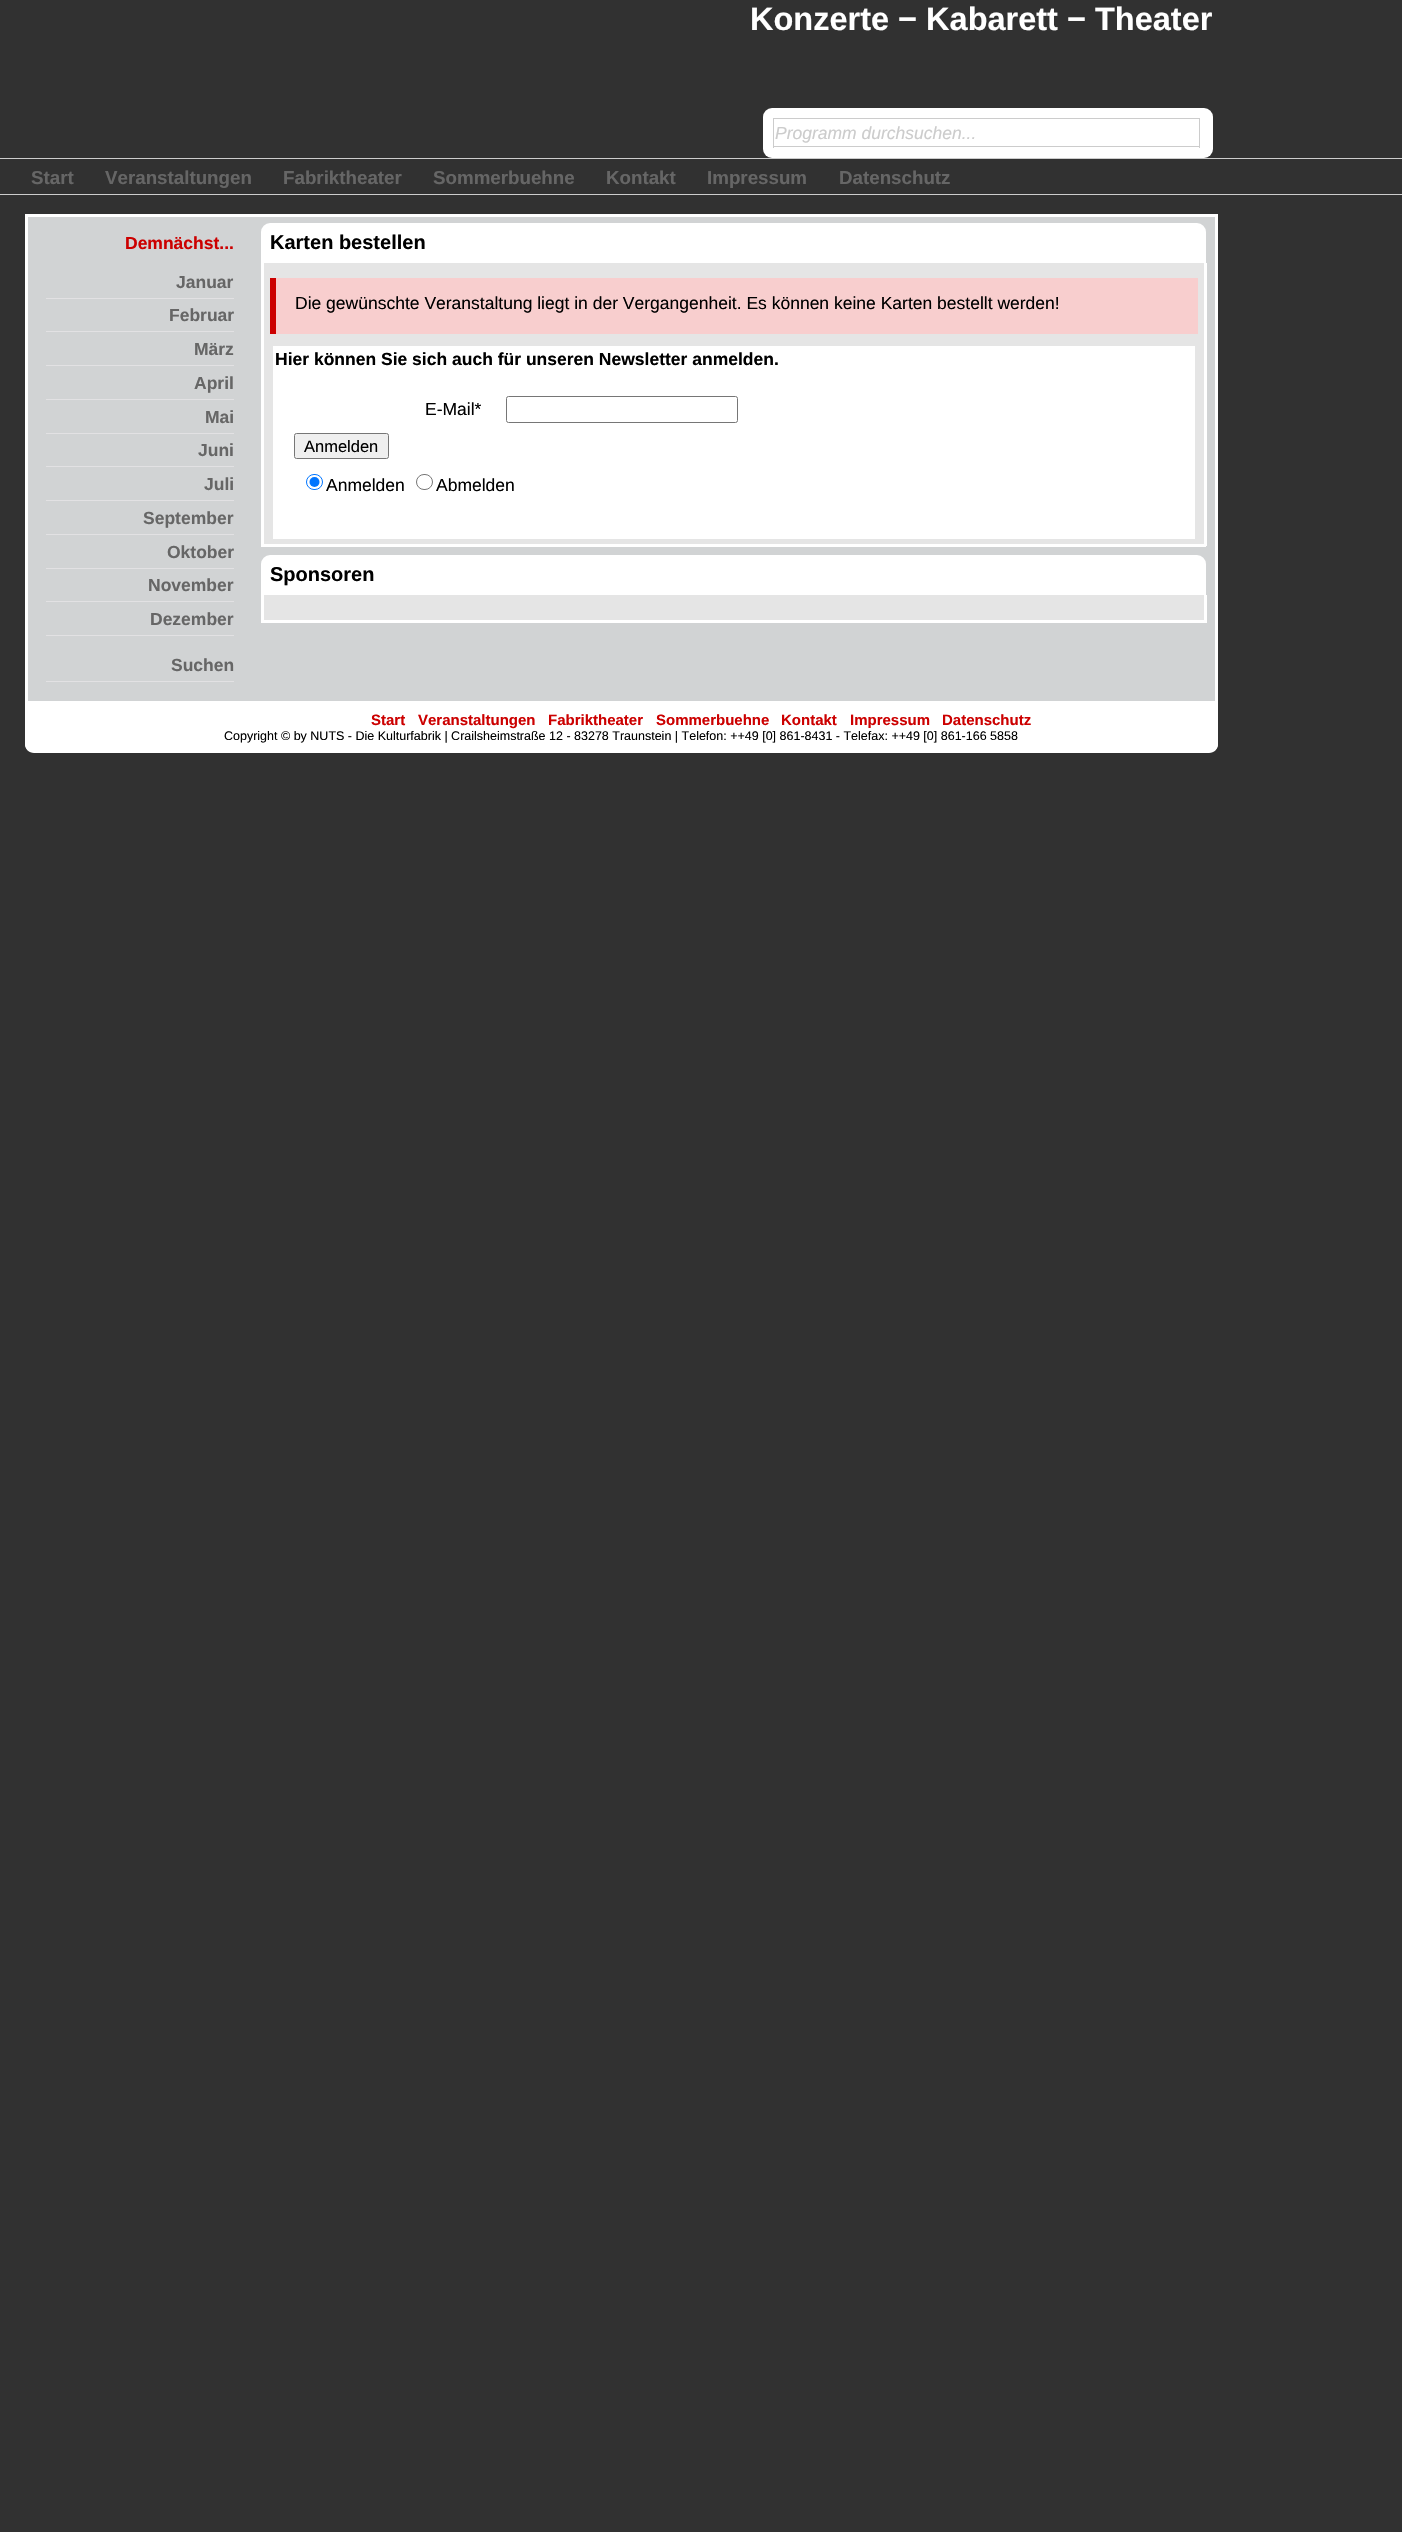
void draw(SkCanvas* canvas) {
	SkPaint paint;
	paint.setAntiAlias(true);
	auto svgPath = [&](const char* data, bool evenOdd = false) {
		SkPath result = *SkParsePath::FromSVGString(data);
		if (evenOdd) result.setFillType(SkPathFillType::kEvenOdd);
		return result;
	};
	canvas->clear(0xff313131);
	SkFont f1(fontMgr->matchFamilyStyle("Liberation Sans", SkFontStyle::Bold()), 32.5);
	f1.setSubpixel(true);
	paint.setColor(0xffffffff);
	canvas->drawString("Konzerte − Kabarett − Theater", 750, 30, f1, paint);
	canvas->drawRoundRect(SkRect::MakeXYWH(763, 108, 450, 50), 9, 9, paint);
	paint.setColor(0xffcccccc);
	canvas->drawRect(SkRect::MakeXYWH(773, 118, 427, 1), paint);
	canvas->drawRect(SkRect::MakeXYWH(773, 146, 397, 1), paint);
	canvas->drawRect(SkRect::MakeXYWH(773, 118, 1, 30), paint);
	SkFont f2(fontMgr->matchFamilyStyle("Liberation Sans", SkFontStyle::Italic()), 17.5);
	f2.setSubpixel(true);
	canvas->drawString("Programm durchsuchen...", 775, 139, f2, paint);
	canvas->drawRect(SkRect::MakeXYWH(1199, 118, 1, 30), paint);
	canvas->drawRect(SkRect::MakeXYWH(1170, 146, 30, 1), paint);
	canvas->drawRect(SkRect::MakeXYWH(0, 158, 1402, 1), paint);
	canvas->drawRect(SkRect::MakeXYWH(0, 194, 1402, 1), paint);
	SkFont f3(fontMgr->matchFamilyStyle("Liberation Sans", SkFontStyle::Bold()), 18.75);
	f3.setSubpixel(true);
	paint.setColor(0xff666666);
	canvas->drawString("Start", 31, 184, f3, paint);
	canvas->drawString("Veranstaltungen", 105, 184, f3, paint);
	canvas->drawString("Fabriktheater", 283, 184, f3, paint);
	canvas->drawString("Sommerbuehne", 433, 184, f3, paint);
	canvas->drawString("Kontakt", 606, 184, f3, paint);
	canvas->drawString("Impressum", 707, 184, f3, paint);
	canvas->drawString("Datenschutz", 839, 184, f3, paint);
	paint.setColor(0xffd1d3d4);
	canvas->drawRect(SkRect::MakeXYWH(26.5, 215.5, 1190, 487), paint);
	paint.setStroke(true);
	paint.setStrokeWidth(3);
	paint.setColor(0xffffffff);
	canvas->drawRect(SkRect::MakeXYWH(26.5, 215.5, 1190, 487), paint);
	SkFont f4(fontMgr->matchFamilyStyle("Liberation Sans", SkFontStyle::Bold()), 17.5);
	f4.setSubpixel(true);
	paint.setStroke(false);
	paint.setColor(0xffcc0000);
	canvas->drawString("Demnächst...", 125, 249, f4, paint);
	paint.setColor(0xffe2e1e3);
	canvas->drawRect(SkRect::MakeXYWH(46, 298, 188, 1), paint);
	paint.setColor(0xff666666);
	canvas->drawString("Januar", 176, 288, f4, paint);
	paint.setColor(0xffe2e1e3);
	canvas->drawRect(SkRect::MakeXYWH(46, 331, 188, 1), paint);
	paint.setColor(0xff666666);
	canvas->drawString("Februar", 169, 321, f4, paint);
	paint.setColor(0xffe2e1e3);
	canvas->drawRect(SkRect::MakeXYWH(46, 365, 188, 1), paint);
	paint.setColor(0xff666666);
	canvas->drawString("März", 194, 355, f4, paint);
	paint.setColor(0xffe2e1e3);
	canvas->drawRect(SkRect::MakeXYWH(46, 399, 188, 1), paint);
	paint.setColor(0xff666666);
	canvas->drawString("April", 194, 389, f4, paint);
	paint.setColor(0xffe2e1e3);
	canvas->drawRect(SkRect::MakeXYWH(46, 433, 188, 1), paint);
	paint.setColor(0xff666666);
	canvas->drawString("Mai", 205, 423, f4, paint);
	paint.setColor(0xffe2e1e3);
	canvas->drawRect(SkRect::MakeXYWH(46, 466, 188, 1), paint);
	paint.setColor(0xff666666);
	canvas->drawString("Juni", 198, 456, f4, paint);
	paint.setColor(0xffe2e1e3);
	canvas->drawRect(SkRect::MakeXYWH(46, 500, 188, 1), paint);
	paint.setColor(0xff666666);
	canvas->drawString("Juli", 204, 490, f4, paint);
	paint.setColor(0xffe2e1e3);
	canvas->drawRect(SkRect::MakeXYWH(46, 534, 188, 1), paint);
	paint.setColor(0xff666666);
	canvas->drawString("September", 143, 524, f4, paint);
	paint.setColor(0xffe2e1e3);
	canvas->drawRect(SkRect::MakeXYWH(46, 568, 188, 1), paint);
	paint.setColor(0xff666666);
	canvas->drawString("Oktober", 167, 558, f4, paint);
	paint.setColor(0xffe2e1e3);
	canvas->drawRect(SkRect::MakeXYWH(46, 601, 188, 1), paint);
	paint.setColor(0xff666666);
	canvas->drawString("November", 148, 591, f4, paint);
	paint.setColor(0xffe2e1e3);
	canvas->drawRect(SkRect::MakeXYWH(46, 635, 188, 1), paint);
	paint.setColor(0xff666666);
	canvas->drawString("Dezember", 150, 625, f4, paint);
	paint.setColor(0xffe2e1e3);
	canvas->drawRect(SkRect::MakeXYWH(46, 681, 188, 1), paint);
	paint.setColor(0xff666666);
	canvas->drawString("Suchen", 171, 671, f4, paint);
	paint.setColor(0xffffffff);
	canvas->drawPath(svgPath("M270 224.5H1197C1201 224.5 1204.5 228 1204.5 232V261.5H262.5V232C262.5 228 266 224.5 270 224.5Z"), paint);
	paint.setStroke(true);
	canvas->drawPath(svgPath("M270 224.5H1197C1201 224.5 1204.5 228 1204.5 232V261.5H262.5V232C262.5 228 266 224.5 270 224.5Z"), paint);
	SkFont f5(fontMgr->matchFamilyStyle("Liberation Sans", SkFontStyle::Bold()), 20);
	f5.setSubpixel(true);
	paint.setStroke(false);
	paint.setColor(0xff000000);
	canvas->drawString("Karten bestellen", 270, 249, f5, paint);
	paint.setColor(0xffe5e5e5);
	canvas->drawRect(SkRect::MakeXYWH(264, 263, 940, 281), paint);
	paint.setColor(0xffffffff);
	canvas->drawRect(SkRect::MakeXYWH(1204, 263, 3, 283), paint);
	canvas->drawRect(SkRect::MakeXYWH(261, 544, 945, 3), paint);
	canvas->drawRect(SkRect::MakeXYWH(261, 263, 3, 283), paint);
	paint.setColor(0xfff8cece);
	canvas->drawRect(SkRect::MakeXYWH(276, 278, 922, 56), paint);
	paint.setColor(0xffcc0000);
	canvas->drawRect(SkRect::MakeXYWH(270, 278, 6, 56), paint);
	SkFont f6(fontMgr->matchFamilyStyle("Liberation Sans", SkFontStyle::Normal()), 17.5);
	f6.setSubpixel(true);
	paint.setColor(0xff000000);
	canvas->drawString("Die gewünschte Veranstaltung liegt in der Vergangenheit. Es können keine Karten bestellt werden!", 295, 309, f6, paint);
	paint.setColor(0xffffffff);
	canvas->drawRect(SkRect::MakeXYWH(273, 346, 922, 193), paint);
	paint.setColor(0xff000000);
	canvas->drawString("Hier können Sie sich auch für unseren Newsletter anmelden.", 275, 365, f4, paint);
	canvas->drawString("E-Mail*", 425, 415, f6, paint);
	paint.setStroke(true);
	paint.setStrokeWidth(1);
	paint.setColor(0xff767676);
	canvas->drawRoundRect(SkRect::MakeXYWH(506.5, 396.5, 231, 26), 2, 2, paint);
	paint.setStroke(false);
	paint.setColor(0xffefefef);
	canvas->drawRoundRect(SkRect::MakeXYWH(294.5, 433.5, 94, 25), 2, 2, paint);
	paint.setStroke(true);
	paint.setColor(0xff767676);
	canvas->drawRoundRect(SkRect::MakeXYWH(294.5, 433.5, 94, 25), 2, 2, paint);
	SkFont f7(fontMgr->matchFamilyStyle("Liberation Sans", SkFontStyle::Normal()), 16.5);
	f7.setSubpixel(true);
	paint.setStroke(false);
	paint.setColor(0xff000000);
	canvas->drawString("Anmelden", 304, 452, f7, paint);
	paint.setStroke(true);
	paint.setColor(0xff0075ff);
	canvas->drawRoundRect(SkRect::MakeXYWH(306.5, 474.5, 16, 15), 7.5, 7.5, paint);
	paint.setStroke(false);
	canvas->drawCircle(314.5, 482, 5, paint);
	paint.setColor(0xff000000);
	canvas->drawString("Anmelden", 326, 491, f6, paint);
	paint.setStroke(true);
	paint.setColor(0xff767676);
	canvas->drawRoundRect(SkRect::MakeXYWH(416.5, 474.5, 16, 15), 7.5, 7.5, paint);
	paint.setStroke(false);
	paint.setColor(0xff000000);
	canvas->drawString("Abmelden", 436, 491, f6, paint);
	paint.setColor(0xffffffff);
	canvas->drawPath(svgPath("M270 556.5H1197C1201 556.5 1204.5 560 1204.5 564V593.5H262.5V564C262.5 560 266 556.5 270 556.5Z"), paint);
	paint.setStroke(true);
	paint.setStrokeWidth(3);
	canvas->drawPath(svgPath("M270 556.5H1197C1201 556.5 1204.5 560 1204.5 564V593.5H262.5V564C262.5 560 266 556.5 270 556.5Z"), paint);
	paint.setStroke(false);
	paint.setColor(0xff000000);
	canvas->drawString("Sponsoren", 270, 581, f5, paint);
	paint.setColor(0xffe5e5e5);
	canvas->drawRect(SkRect::MakeXYWH(264, 595, 940, 25), paint);
	paint.setColor(0xffffffff);
	canvas->drawRect(SkRect::MakeXYWH(1204, 595, 3, 28), paint);
	canvas->drawRect(SkRect::MakeXYWH(261, 620, 945, 3), paint);
	canvas->drawRect(SkRect::MakeXYWH(261, 595, 3, 28), paint);
	canvas->drawPath(svgPath("M25 704H1218V744C1218 749 1214 753 1209 753H34C29 753 25 749 25 744Z"), paint);
	canvas->drawPath(svgPath("M25 704H1218V744C1218 749 1214 752 1209 752H34C29 752 25 749 25 744ZM28 704H1215V744C1215 747 1212 750 1209 750H34C30 750 28 747 28 744Z", true), paint);
	SkFont f8(fontMgr->matchFamilyStyle("Liberation Sans", SkFontStyle::Bold()), 15);
	f8.setSubpixel(true);
	paint.setColor(0xffcc0000);
	canvas->drawString("Start", 371, 725, f8, paint);
	canvas->drawString("Veranstaltungen", 418, 725, f8, paint);
	canvas->drawString("Fabriktheater", 548, 725, f8, paint);
	canvas->drawString("Sommerbuehne", 656, 725, f8, paint);
	canvas->drawString("Kontakt", 781, 725, f8, paint);
	canvas->drawString("Impressum", 850, 725, f8, paint);
	canvas->drawString("Datenschutz", 942, 725, f8, paint);
	SkFont f9(fontMgr->matchFamilyStyle("Liberation Sans", SkFontStyle::Normal()), 12.5);
	f9.setSubpixel(true);
	paint.setColor(0xff000000);
	canvas->drawString("Copyright © by NUTS - Die Kulturfabrik | Crailsheimstraße 12 - 83278 Traunstein | Telefon: ++49 [0] 861-8431 - Telefax: ++49 [0] 861-166 5858", 224, 740, f9, paint);
}
